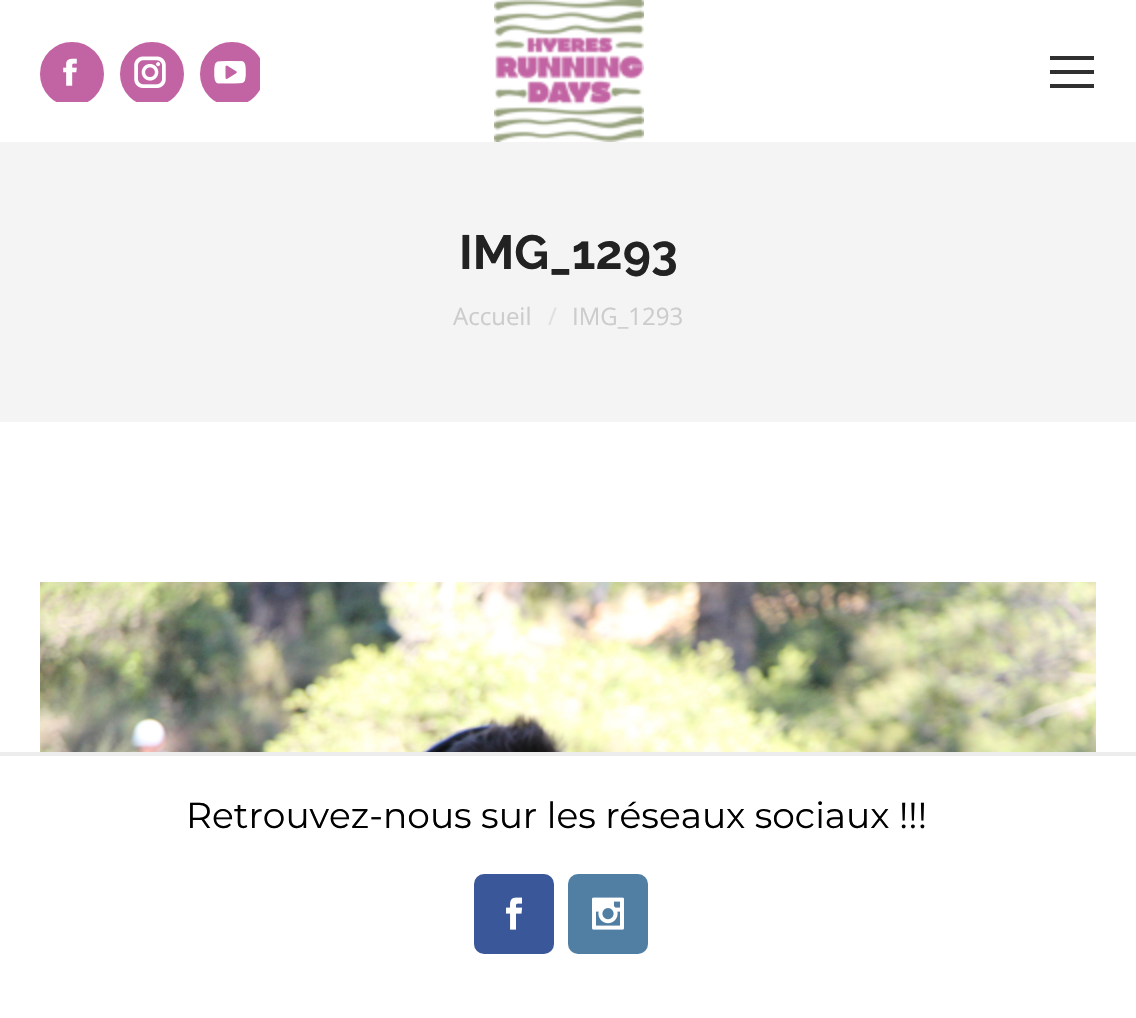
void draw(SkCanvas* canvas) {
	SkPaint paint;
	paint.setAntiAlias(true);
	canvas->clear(0xffffffff);
	canvas->save();
	canvas->clipRect(SkRect::MakeXYWH(40, 42, 220, 60));
	paint.setColor(0xffc264a3);
	canvas->drawCircle(72, 74, 31, paint);
	paint.setStroke(true);
	paint.setStrokeWidth(2);
	canvas->drawCircle(72, 74, 31, paint);
	canvas->restore();
	canvas->drawImageRect(SkImages::DeferredFromEncodedData(SkData::MakeFromFileName("img1.png")), SkRect::MakeXYWH(63, 58, 14, 28), SkSamplingOptions());
	canvas->save();
	canvas->clipRect(SkRect::MakeXYWH(40, 42, 220, 60));
	paint.setStroke(false);
	canvas->drawCircle(152, 74, 31, paint);
	paint.setStroke(true);
	canvas->drawCircle(152, 74, 31, paint);
	canvas->restore();
	canvas->drawImageRect(SkImages::DeferredFromEncodedData(SkData::MakeFromFileName("img2.png")), SkRect::MakeXYWH(134, 56, 32, 32), SkSamplingOptions());
	canvas->save();
	canvas->clipRect(SkRect::MakeXYWH(40, 42, 220, 60));
	paint.setStroke(false);
	canvas->drawCircle(232, 74, 31, paint);
	paint.setStroke(true);
	canvas->drawCircle(232, 74, 31, paint);
	canvas->restore();
	canvas->drawImageRect(SkImages::DeferredFromEncodedData(SkData::MakeFromFileName("img3.png")), SkRect::MakeXYWH(214, 61, 32, 23), SkSamplingOptions());
	canvas->drawImageRect(SkImages::DeferredFromEncodedData(SkData::MakeFromFileName("img4.png")), SkRect::MakeXYWH(494, 0, 150, 142), SkSamplingOptions());
	paint.setStroke(false);
	paint.setColor(0xff303030);
	canvas->drawRect(SkRect::MakeXYWH(1050, 56, 44, 4), paint);
	canvas->drawRect(SkRect::MakeXYWH(1050, 70, 44, 4), paint);
	canvas->drawRect(SkRect::MakeXYWH(1050, 84, 44, 4), paint);
	paint.setColor(0xfff4f4f4);
	canvas->drawRect(SkRect::MakeXYWH(0, 142, 1136, 280), paint);
	SkFont f1(fontMgr->matchFamilyStyle("Raleway", SkFontStyle::Bold()), 48);
	f1.setSubpixel(true);
	paint.setColor(0xff222222);
	canvas->drawString("IMG_1293", 459, 269, f1, paint);
	SkFont f2(fontMgr->matchFamilyStyle("Open Sans", SkFontStyle::Normal()), 24);
	f2.setSubpixel(true);
	paint.setColor(0xffcccccc);
	canvas->drawString("Accueil", 453, 325, f2, paint);
	paint.setColor(0xffe0e0e0);
	canvas->drawString("/", 548, 325, f2, paint);
	paint.setColor(0xffcccccc);
	canvas->drawString("IMG_1293", 572, 325, f2, paint);
	canvas->drawImageRect(SkImages::DeferredFromEncodedData(SkData::MakeFromFileName("img5.png")), SkRect::MakeXYWH(40, 582, 1056, 170), SkSamplingOptions());
	paint.setColor(0xffededed);
	canvas->drawRect(SkRect::MakeXYWH(0, 752, 1136, 4), paint);
	SkFont f3(fontMgr->matchFamilyStyle("Montserrat", SkFontStyle(100, SkFontStyle::kNormal_Width, SkFontStyle::kUpright_Slant)), 36);
	f3.setSubpixel(true);
	paint.setColor(0xff000000);
	canvas->drawString("Retrouvez-nous sur les réseaux sociaux !!!", 186, 828, f3, paint);
	paint.setColor(0xff3a579a);
	canvas->drawRoundRect(SkRect::MakeXYWH(474, 874, 80, 80), 10, 10, paint);
	canvas->drawImageRect(SkImages::DeferredFromEncodedData(SkData::MakeFromFileName("img6.png")), SkRect::MakeXYWH(506, 897, 17, 33), SkSamplingOptions());
	paint.setColor(0xff517fa4);
	canvas->drawRoundRect(SkRect::MakeXYWH(568, 874, 80, 80), 10, 10, paint);
	canvas->drawImageRect(SkImages::DeferredFromEncodedData(SkData::MakeFromFileName("img7.png")), SkRect::MakeXYWH(592, 897, 32, 33), SkSamplingOptions());
}
